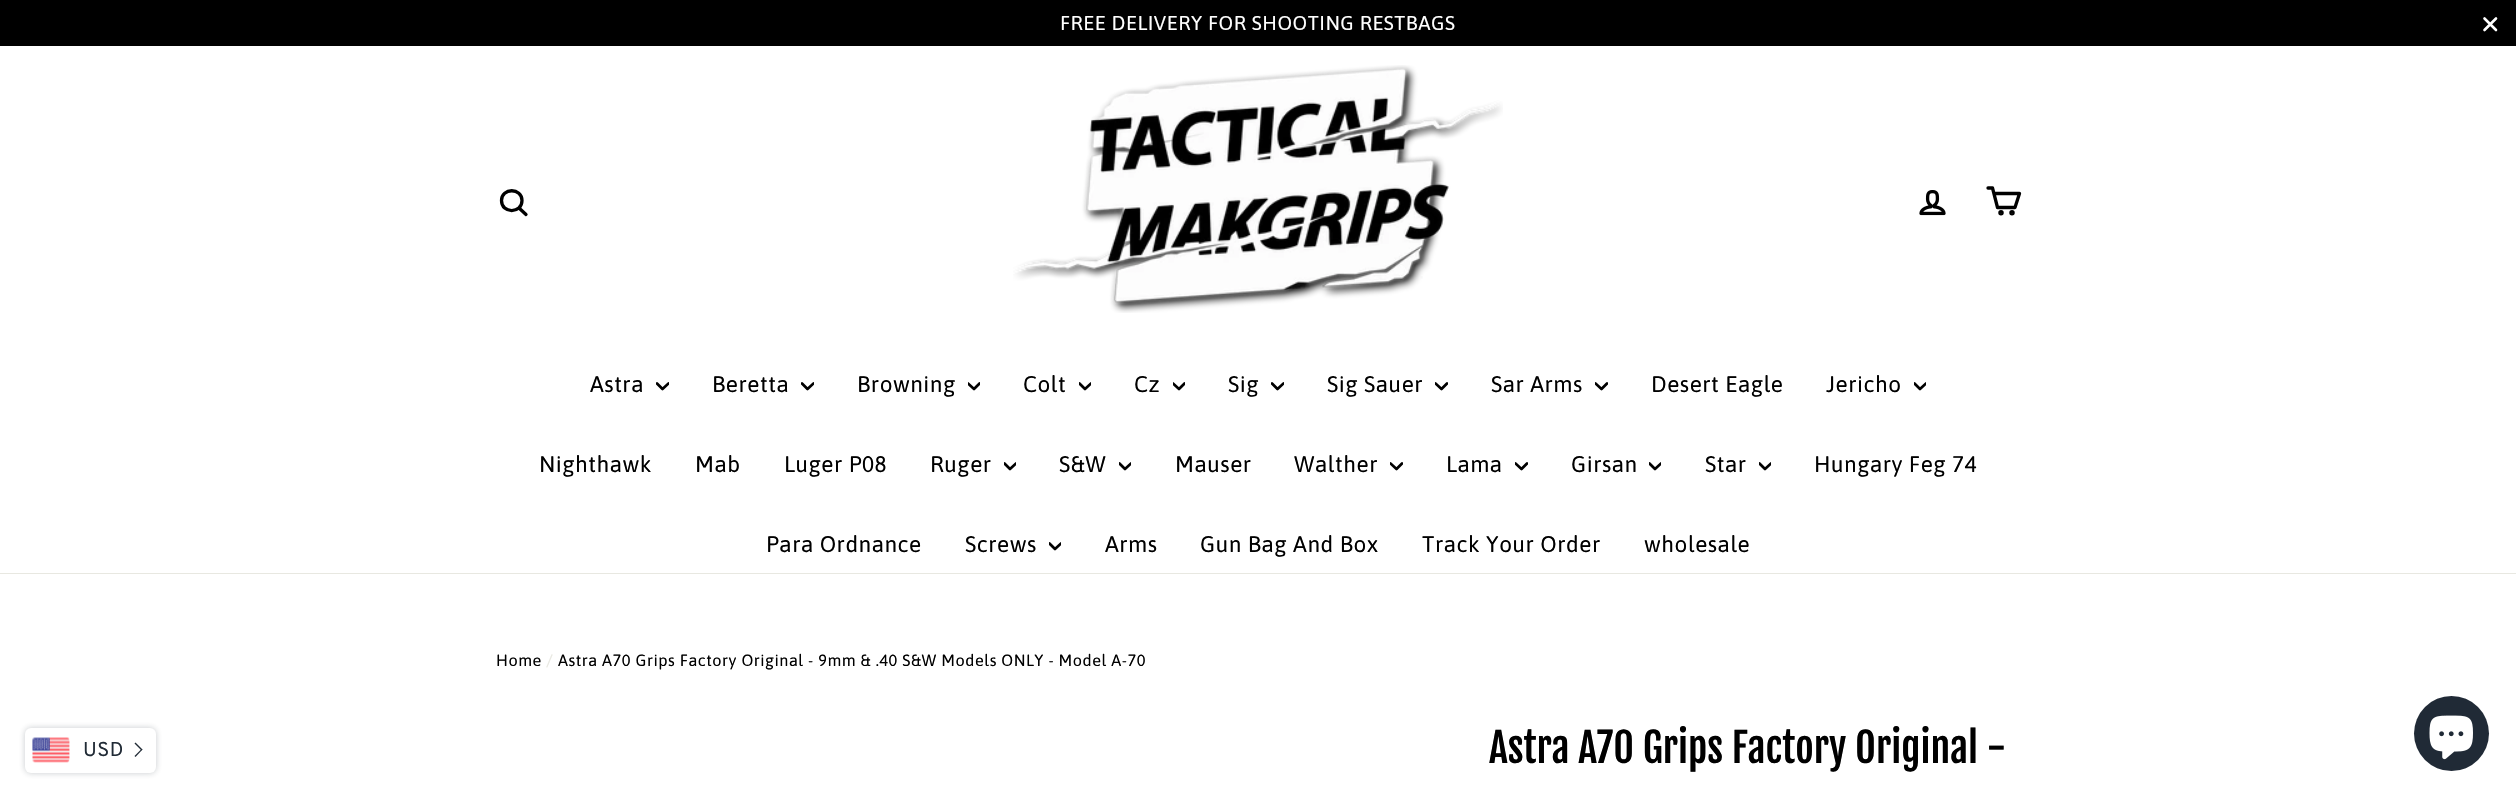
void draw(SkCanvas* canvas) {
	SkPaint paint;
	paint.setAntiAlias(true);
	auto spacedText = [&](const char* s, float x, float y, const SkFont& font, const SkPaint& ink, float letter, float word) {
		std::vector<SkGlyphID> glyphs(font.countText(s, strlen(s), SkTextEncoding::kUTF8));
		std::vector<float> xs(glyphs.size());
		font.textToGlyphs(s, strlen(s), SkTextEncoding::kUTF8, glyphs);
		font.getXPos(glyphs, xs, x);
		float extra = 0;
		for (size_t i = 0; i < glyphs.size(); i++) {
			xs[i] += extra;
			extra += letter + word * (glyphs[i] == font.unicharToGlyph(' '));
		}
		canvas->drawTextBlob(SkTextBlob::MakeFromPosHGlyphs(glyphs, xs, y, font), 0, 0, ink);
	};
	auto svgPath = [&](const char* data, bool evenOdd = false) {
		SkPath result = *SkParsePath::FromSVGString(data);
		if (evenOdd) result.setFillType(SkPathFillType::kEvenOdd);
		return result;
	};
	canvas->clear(0xffffffff);
	paint.setColor(0x40212b36);
	paint.setMaskFilter(SkMaskFilter::MakeBlur(kNormal_SkBlurStyle, 3));
	canvas->drawRoundRect(SkRect::MakeXYWH(25, 728, 131, 45), 6, 6, paint);
	paint.setMaskFilter(nullptr);
	paint.setColor(0xffffffff);
	canvas->drawRoundRect(SkRect::MakeXYWH(25, 728, 131, 45), 6, 6, paint);
	canvas->drawImageRect(SkImages::DeferredFromEncodedData(SkData::MakeFromFileName("img1.png")), SkRect::MakeXYWH(32, 737, 38, 26), SkSamplingOptions());
	SkFont f1(fontMgr->matchFamilyStyle("Overpass", SkFontStyle::Normal()), 20);
	f1.setSubpixel(true);
	paint.setColor(0xff212b36);
	spacedText("USD", 83, 756, f1, paint, 0.53, 0);
	canvas->drawPath(svgPath("M134.5 743.5L135.5 742.5L142.5 749.5L141.5 750.5Z"), paint);
	canvas->drawPath(svgPath("M134.5 756L141.5 749L142.5 749.5L135.5 757Z"), paint);
	paint.setColor(0xff000000);
	canvas->drawRect(SkRect::MakeXYWH(0, 0, 2516, 46), paint);
	SkFont f2(fontMgr->matchFamilyStyle("Asap", SkFontStyle::Normal()), 20);
	f2.setSubpixel(true);
	paint.setColor(0xffffffff);
	spacedText("FREE DELIVERY FOR SHOOTING RESTBAGS", 1060, 30, f2, paint, 0.53, 0);
	paint.setStroke(true);
	paint.setStrokeWidth(2.6);
	paint.setStrokeCap(SkPaint::kRound_Cap);
	paint.setStrokeJoin(SkPaint::kRound_Join);
	canvas->drawPath(svgPath("M2484.5 18.5L2496 30M2496 18.5L2484.5 30"), paint);
	paint.setStroke(false);
	paint.setColor(0xffe8e8e1);
	canvas->drawRect(SkRect::MakeXYWH(0, 573, 2516, 1), paint);
	paint.setStroke(true);
	paint.setStrokeWidth(3.3);
	paint.setColor(0xff000000);
	canvas->drawPath(svgPath("M522 200.5C522 214 501.5 214 501.5 200.5C501.5 187.5 522 187.5 522 200.5ZM526 214.5L519 208"), paint);
	canvas->drawImageRect(SkImages::DeferredFromEncodedData(SkData::MakeFromFileName("img2.png")), SkRect::MakeXYWH(1013, 65, 490, 248), SkSamplingOptions());
	canvas->drawImageRect(SkImages::DeferredFromEncodedData(SkData::MakeFromFileName("img3.png")), SkRect::MakeXYWH(1919, 190, 27, 26), SkSamplingOptions());
	canvas->drawPath(svgPath("M1994 193.5H2019.5L2015 207.5H1997.5L1992.5 188H1988"), paint);
	paint.setStroke(false);
	canvas->drawCircle(2001, 212.7, 1.1, paint);
	paint.setStroke(true);
	paint.setStrokeCap(SkPaint::kButt_Cap);
	paint.setStrokeJoin(SkPaint::kMiter_Join);
	canvas->drawCircle(2001, 212.7, 1.1, paint);
	paint.setStroke(false);
	canvas->drawCircle(2012, 212.7, 1.1, paint);
	paint.setStroke(true);
	canvas->drawCircle(2012, 212.7, 1.1, paint);
	SkFont f3(fontMgr->matchFamilyStyle("Asap", SkFontStyle::Normal()), 22.5);
	f3.setSubpixel(true);
	paint.setStroke(false);
	spacedText("Astra", 590, 392, f3, paint, 0.53, 0);
	canvas->save();
	canvas->clipRect(SkRect::MakeXYWH(656, 380, 13, 13));
	paint.setStroke(true);
	paint.setStrokeWidth(2.7);
	paint.setStrokeCap(SkPaint::kRound_Cap);
	paint.setStrokeJoin(SkPaint::kRound_Join);
	canvas->drawPath(svgPath("M657 383.5L662.5 389L668.5 383.5"), paint);
	canvas->restore();
	paint.setStroke(false);
	spacedText("Beretta", 712, 392, f3, paint, 0.53, 0);
	canvas->save();
	canvas->clipRect(SkRect::MakeXYWH(801, 380, 13, 13));
	paint.setStroke(true);
	canvas->drawPath(svgPath("M802 383.5L807.5 389L813.5 383.5"), paint);
	canvas->restore();
	paint.setStroke(false);
	spacedText("Browning", 857, 392, f3, paint, 0.53, 0);
	canvas->save();
	canvas->clipRect(SkRect::MakeXYWH(968, 380, 12, 13));
	paint.setStroke(true);
	canvas->drawPath(svgPath("M968 383.5L974 389L979.5 383.5"), paint);
	canvas->restore();
	paint.setStroke(false);
	spacedText("Colt", 1023, 392, f3, paint, 0.53, 0);
	canvas->save();
	canvas->clipRect(SkRect::MakeXYWH(1079, 380, 12, 13));
	paint.setStroke(true);
	canvas->drawPath(svgPath("M1079.5 383.5L1085 389L1091 383.5"), paint);
	canvas->restore();
	paint.setStroke(false);
	spacedText("Cz", 1134, 392, f3, paint, 0.53, 0);
	canvas->save();
	canvas->clipRect(SkRect::MakeXYWH(1173, 380, 12, 13));
	paint.setStroke(true);
	canvas->drawPath(svgPath("M1173 383.5L1179 389L1184.5 383.5"), paint);
	canvas->restore();
	paint.setStroke(false);
	spacedText("Sig", 1228, 392, f3, paint, 0.53, 0);
	canvas->save();
	canvas->clipRect(SkRect::MakeXYWH(1271, 380, 13, 13));
	paint.setStroke(true);
	canvas->drawPath(svgPath("M1272 383.5L1277.5 389L1283.5 383.5"), paint);
	canvas->restore();
	paint.setStroke(false);
	spacedText("Sig Sauer", 1327, 392, f3, paint, 0.53, 0);
	canvas->save();
	canvas->clipRect(SkRect::MakeXYWH(1435, 380, 13, 13));
	paint.setStroke(true);
	canvas->drawPath(svgPath("M1435.5 383.5L1441.5 389L1447 383.5"), paint);
	canvas->restore();
	paint.setStroke(false);
	spacedText("Sar Arms", 1491, 392, f3, paint, 0.53, 0);
	canvas->save();
	canvas->clipRect(SkRect::MakeXYWH(1595, 380, 13, 13));
	paint.setStroke(true);
	canvas->drawPath(svgPath("M1595.5 383.5L1601.5 389L1607 383.5"), paint);
	canvas->restore();
	paint.setStroke(false);
	spacedText("Desert Eagle", 1651, 392, f3, paint, 0.53, 0);
	spacedText("Jericho", 1826, 392, f3, paint, 0.53, 0);
	canvas->save();
	canvas->clipRect(SkRect::MakeXYWH(1914, 380, 12, 13));
	paint.setStroke(true);
	canvas->drawPath(svgPath("M1914.5 383.5L1920 389L1926 383.5"), paint);
	canvas->restore();
	paint.setStroke(false);
	spacedText("Nighthawk", 539, 472, f3, paint, 0.53, 0);
	spacedText("Mab", 695, 472, f3, paint, 0.53, 0);
	spacedText("Luger P08", 784, 472, f3, paint, 0.53, 0);
	spacedText("Ruger", 930, 472, f3, paint, 0.53, 0);
	canvas->save();
	canvas->clipRect(SkRect::MakeXYWH(1004, 460, 12, 13));
	paint.setStroke(true);
	canvas->drawPath(svgPath("M1004.5 463.5L1010 469L1016 463.5"), paint);
	canvas->restore();
	paint.setStroke(false);
	spacedText("S&W", 1059, 472, f3, paint, 0.53, 0);
	canvas->save();
	canvas->clipRect(SkRect::MakeXYWH(1119, 460, 12, 13));
	paint.setStroke(true);
	canvas->drawPath(svgPath("M1119.5 463.5L1125 469L1131 463.5"), paint);
	canvas->restore();
	paint.setStroke(false);
	spacedText("Mauser", 1175, 472, f3, paint, 0.53, 0);
	spacedText("Walther", 1294, 472, f3, paint, 0.53, 0);
	canvas->save();
	canvas->clipRect(SkRect::MakeXYWH(1390, 460, 13, 13));
	paint.setStroke(true);
	canvas->drawPath(svgPath("M1390.5 463.5L1396.5 469L1402 463.5"), paint);
	canvas->restore();
	paint.setStroke(false);
	spacedText("Lama", 1446, 472, f3, paint, 0.53, 0);
	canvas->save();
	canvas->clipRect(SkRect::MakeXYWH(1515, 460, 13, 13));
	paint.setStroke(true);
	canvas->drawPath(svgPath("M1515.5 463.5L1521.5 469L1527 463.5"), paint);
	canvas->restore();
	paint.setStroke(false);
	spacedText("Girsan", 1571, 472, f3, paint, 0.53, 0);
	canvas->save();
	canvas->clipRect(SkRect::MakeXYWH(1649, 460, 12, 13));
	paint.setStroke(true);
	canvas->drawPath(svgPath("M1649.5 463.5L1655 469L1661 463.5"), paint);
	canvas->restore();
	paint.setStroke(false);
	spacedText("Star", 1705, 472, f3, paint, 0.53, 0);
	canvas->save();
	canvas->clipRect(SkRect::MakeXYWH(1759, 460, 12, 13));
	paint.setStroke(true);
	canvas->drawPath(svgPath("M1759.5 463.5L1765 469L1771 463.5"), paint);
	canvas->restore();
	paint.setStroke(false);
	spacedText("Hungary Feg 74", 1814, 472, f3, paint, 0.53, 0);
	spacedText("Para Ordnance", 766, 552, f3, paint, 0.53, 0);
	spacedText("Screws", 965, 552, f3, paint, 0.53, 0);
	canvas->save();
	canvas->clipRect(SkRect::MakeXYWH(1049, 540, 12, 13));
	paint.setStroke(true);
	canvas->drawPath(svgPath("M1049.5 543.5L1055 549L1061 543.5"), paint);
	canvas->restore();
	paint.setStroke(false);
	spacedText("Arms", 1105, 552, f3, paint, 0.53, 0);
	spacedText("Gun Bag And Box", 1200, 552, f3, paint, 0.53, 0);
	spacedText("Track Your Order", 1422, 552, f3, paint, 0.53, 0);
	spacedText("wholesale", 1644, 552, f3, paint, 0.53, 0);
	SkFont f4(fontMgr->matchFamilyStyle("Asap", SkFontStyle::Normal()), 16.25);
	f4.setSubpixel(true);
	spacedText("Home", 496, 666, f4, paint, 0.53, 0);
	paint.setColor(0xffe8e8e1);
	spacedText("/", 546, 666, f4, paint, 0.53, 0);
	paint.setColor(0xff000000);
	spacedText("Astra A70 Grips Factory Original - 9mm & .40 S&W Models ONLY - Model A-70", 558, 666, f4, paint, 0.53, 0);
	SkFont f5(fontMgr->matchFamilyStyle("Fjalla One", SkFontStyle::Normal()), 40);
	f5.setSubpixel(true);
	canvas->drawString("Astra A70 Grips Factory Original -", 1489, 763, f5, paint);
	paint.setColor(0xff202a36);
	canvas->drawCircle(2451.5, 733.5, 37.5, paint);
	canvas->drawImageRect(SkImages::DeferredFromEncodedData(SkData::MakeFromFileName("img4.png")), SkRect::MakeXYWH(2429, 715, 44, 45), SkSamplingOptions());
}
